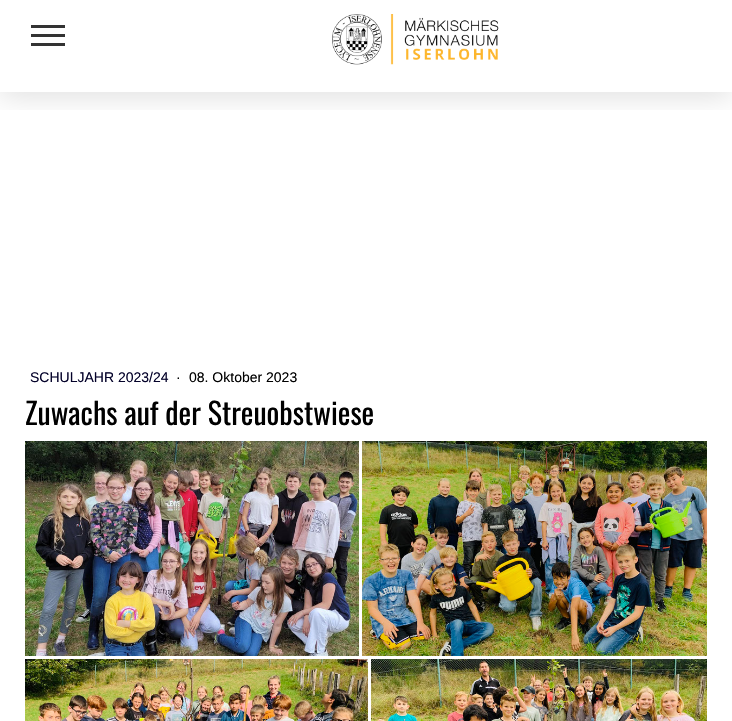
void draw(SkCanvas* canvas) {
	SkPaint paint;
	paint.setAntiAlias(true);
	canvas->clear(0xffffffff);
	canvas->save();
	canvas->clipRect(SkRect::MakeXYWH(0, 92, 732, 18));
	paint.setColor(0x33000000);
	paint.setMaskFilter(SkMaskFilter::MakeBlur(kNormal_SkBlurStyle, 15));
	canvas->drawRect(SkRect::MakeXYWH(0, 75, 732, 17), paint);
	paint.setMaskFilter(nullptr);
	canvas->restore();
	paint.setColor(0xffffffff);
	canvas->drawRect(SkRect::MakeXYWH(0, 51, 732, 24), paint);
	canvas->drawImageRect(SkImages::DeferredFromEncodedData(SkData::MakeFromFileName("img1.png")), SkRect::MakeXYWH(332, 14, 167, 51), SkSamplingOptions());
	paint.setColor(0xff333333);
	canvas->drawRect(SkRect::MakeXYWH(31, 34, 34, 3), paint);
	canvas->drawRect(SkRect::MakeXYWH(31, 25, 34, 3), paint);
	canvas->drawRect(SkRect::MakeXYWH(31, 43, 34, 3), paint);
	SkFont f1(fontMgr->matchFamilyStyle("Liberation Sans", SkFontStyle::Normal()), 14);
	f1.setSubpixel(true);
	paint.setColor(0xff04022a);
	canvas->drawString("SCHULJAHR 2023/24", 30, 382, f1, paint);
	paint.setColor(0xff000000);
	canvas->drawString("·", 176, 382, f1, paint);
	canvas->drawString("08. Oktober 2023", 189, 382, f1, paint);
	SkFont f2(fontMgr->matchFamilyStyle("Oswald", SkFontStyle::Normal()), 30);
	f2.setSubpixel(true);
	canvas->drawString("Zuwachs auf der Streuobstwiese", 25, 425, f2, paint);
	canvas->drawImageRect(SkImages::DeferredFromEncodedData(SkData::MakeFromFileName("img2.png")), SkRect::MakeXYWH(25, 441, 334, 215), SkSamplingOptions());
	canvas->drawImageRect(SkImages::DeferredFromEncodedData(SkData::MakeFromFileName("img3.png")), SkRect::MakeXYWH(362, 441, 345, 215), SkSamplingOptions());
	canvas->drawImageRect(SkImages::DeferredFromEncodedData(SkData::MakeFromFileName("img4.png")), SkRect::MakeXYWH(25, 659, 343, 62), SkSamplingOptions());
	canvas->drawImageRect(SkImages::DeferredFromEncodedData(SkData::MakeFromFileName("img5.png")), SkRect::MakeXYWH(371, 659, 336, 62), SkSamplingOptions());
}
